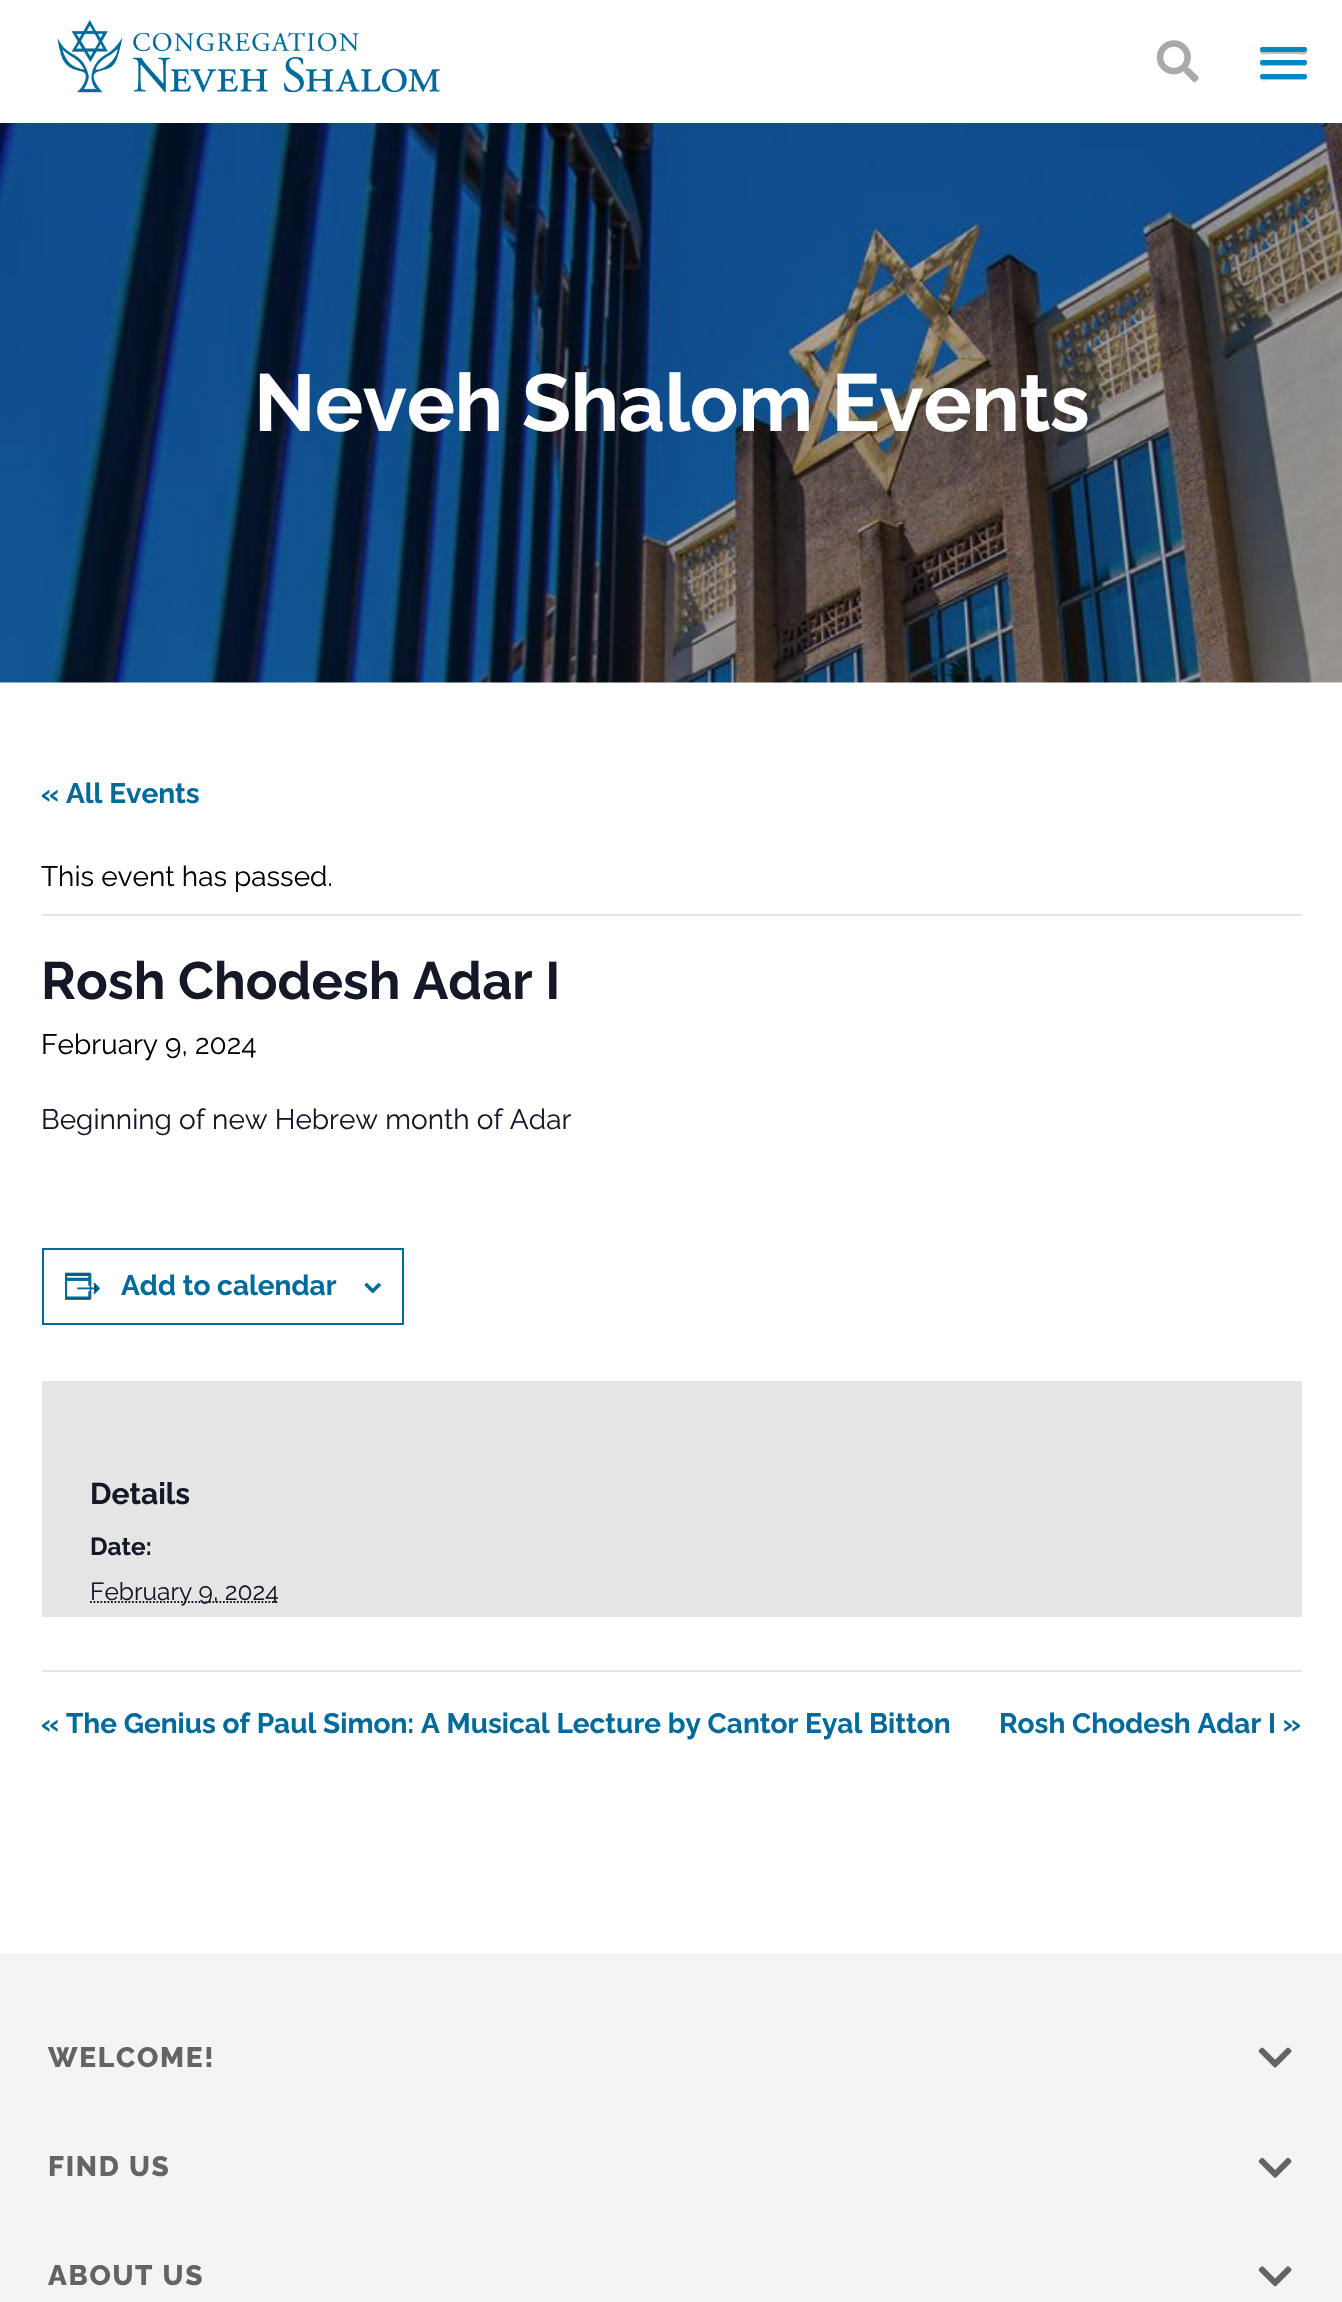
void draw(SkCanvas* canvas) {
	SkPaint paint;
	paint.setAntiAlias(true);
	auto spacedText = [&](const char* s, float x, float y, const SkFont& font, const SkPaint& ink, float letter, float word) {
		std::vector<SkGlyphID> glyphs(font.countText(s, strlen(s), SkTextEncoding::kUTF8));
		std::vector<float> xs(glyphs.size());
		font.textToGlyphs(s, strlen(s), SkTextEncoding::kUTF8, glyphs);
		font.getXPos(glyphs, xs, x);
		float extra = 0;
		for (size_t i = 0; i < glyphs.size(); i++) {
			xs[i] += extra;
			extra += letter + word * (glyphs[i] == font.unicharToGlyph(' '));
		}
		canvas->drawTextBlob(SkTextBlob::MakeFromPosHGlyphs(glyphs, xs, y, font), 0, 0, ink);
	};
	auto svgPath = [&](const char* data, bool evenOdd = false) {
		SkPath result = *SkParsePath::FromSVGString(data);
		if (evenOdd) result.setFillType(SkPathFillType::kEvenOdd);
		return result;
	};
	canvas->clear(0xffffffff);
	canvas->drawImageRect(SkImages::DeferredFromEncodedData(SkData::MakeFromFileName("img1.png")), SkRect::MakeXYWH(57, 20, 383, 73), SkSamplingOptions());
	canvas->drawImageRect(SkImages::DeferredFromEncodedData(SkData::MakeFromFileName("img2.png")), SkRect::MakeXYWH(1156, 40, 43, 43), SkSamplingOptions());
	paint.setColor(0xffbfbfbf);
	canvas->drawPath(svgPath("M1260 51C1260 56 1266 54 1269 54H1298C1299 54 1307 56 1307 52H1306H1262C1261 52 1260 52 1260 51Z"), paint);
	paint.setColor(0xff0089bf);
	canvas->drawRoundRect(SkRect::MakeXYWH(1260, 47, 47, 5), 2, 2, paint);
	paint.setColor(0xffbfbfbf);
	canvas->drawPath(svgPath("M1260 63C1260 68 1265 66 1269 66H1306L1307 64L1306 65H1262C1261 65 1260 64 1260 63Z"), paint);
	paint.setColor(0xff0089bf);
	canvas->drawRoundRect(SkRect::MakeXYWH(1260, 60, 47, 5), 2, 2, paint);
	paint.setColor(0xffbfbfbf);
	canvas->drawPath(svgPath("M1260 77C1260 82 1265 80 1269 80H1306L1307 78L1306 79H1262C1261 79 1260 78 1260 77Z"), paint);
	paint.setColor(0xff0089bf);
	canvas->drawRoundRect(SkRect::MakeXYWH(1260, 74, 47, 5), 2, 2, paint);
	canvas->drawImageRect(SkImages::DeferredFromEncodedData(SkData::MakeFromFileName("img3.png")), SkRect::MakeXYWH(0, 123, 1342, 560), SkSamplingOptions());
	SkFont f1(fontMgr->matchFamilyStyle("Raleway", SkFontStyle::Bold()), 80.5);
	f1.setSubpixel(true);
	paint.setColor(0xffffffff);
	spacedText("Neveh Shalom Events", 254, 431, f1, paint, -0.4, 0);
	SkFont f2(fontMgr->matchFamilyStyle("Raleway", SkFontStyle::Bold()), 28);
	f2.setSubpixel(true);
	paint.setColor(0xff006a9a);
	canvas->drawString("« All Events", 41, 803, f2, paint);
	paint.setColor(0xffe4e4e4);
	canvas->drawRect(SkRect::MakeXYWH(42, 914, 1260, 2), paint);
	SkFont f3(fontMgr->matchFamilyStyle("Raleway", SkFontStyle::Normal()), 28);
	f3.setSubpixel(true);
	paint.setColor(0xff000000);
	canvas->drawString("This event has passed.", 41, 886, f3, paint);
	SkFont f4(fontMgr->matchFamilyStyle("Raleway", SkFontStyle::Bold()), 52.5);
	f4.setSubpixel(true);
	paint.setColor(0xff141827);
	canvas->drawString("Rosh Chodesh Adar I", 41, 999, f4, paint);
	paint.setColor(0xff000000);
	canvas->drawString("February 9, 2024", 41, 1054, f3, paint);
	paint.setColor(0xff141827);
	canvas->drawString("Beginning of new Hebrew month of Adar", 41, 1129, f3, paint);
	paint.setStroke(true);
	paint.setStrokeWidth(2);
	paint.setColor(0xff006a9a);
	canvas->drawRect(SkRect::MakeXYWH(43, 1249, 360, 75), paint);
	canvas->drawImageRect(SkImages::DeferredFromEncodedData(SkData::MakeFromFileName("img4.png")), SkRect::MakeXYWH(65, 1272, 35, 28), SkSamplingOptions());
	paint.setStroke(false);
	canvas->drawString("Add to calendar", 121, 1295, f2, paint);
	canvas->drawImageRect(SkImages::DeferredFromEncodedData(SkData::MakeFromFileName("img5.png")), SkRect::MakeXYWH(364, 1283, 18, 10), SkSamplingOptions());
	paint.setColor(0xffe5e5e5);
	canvas->drawRect(SkRect::MakeXYWH(42, 1381, 1260, 236), paint);
	SkFont f5(fontMgr->matchFamilyStyle("Raleway", SkFontStyle::Bold()), 30);
	f5.setSubpixel(true);
	paint.setColor(0xff141827);
	canvas->drawString("Details", 90, 1504, f5, paint);
	SkFont f6(fontMgr->matchFamilyStyle("Raleway", SkFontStyle::Bold()), 24.5);
	f6.setSubpixel(true);
	canvas->drawString("Date:", 90, 1555, f6, paint);
	paint.setStroke(true);
	paint.setStrokeWidth(1.8);
	paint.setPathEffect(SkDashPathEffect::Make({{1.75f, 1.75f}}, 0));
	canvas->drawPath(svgPath("M90 1602H278.5"), paint);
	paint.setPathEffect(nullptr);
	SkFont f7(fontMgr->matchFamilyStyle("Raleway", SkFontStyle::Normal()), 24.5);
	f7.setSubpixel(true);
	paint.setStroke(false);
	canvas->drawString("February 9, 2024", 90, 1600, f7, paint);
	paint.setColor(0xffe4e4e4);
	canvas->drawRect(SkRect::MakeXYWH(42, 1670, 1260, 2), paint);
	paint.setColor(0xff006a9a);
	canvas->drawString("« The Genius of Paul Simon: A Musical Lecture by Cantor Eyal Bitton", 41, 1733, f2, paint);
	canvas->drawString("Rosh Chodesh Adar I »", 999, 1733, f2, paint);
	paint.setColor(0xfff4f4f4);
	canvas->drawRect(SkRect::MakeXYWH(0, 1953, 1342, 349), paint);
	SkFont f8(fontMgr->matchFamilyStyle("Raleway", SkFontStyle(800, SkFontStyle::kNormal_Width, SkFontStyle::kUpright_Slant)), 28);
	f8.setSubpixel(true);
	paint.setColor(0xff646464);
	spacedText("WELCOME!", 48, 2067, f8, paint, 1.75, 0);
	canvas->drawImageRect(SkImages::DeferredFromEncodedData(SkData::MakeFromFileName("img6.png")), SkRect::MakeXYWH(1258, 2047, 34, 21), SkSamplingOptions());
	spacedText("FIND US", 48, 2176, f8, paint, 1.75, 0);
	canvas->drawImageRect(SkImages::DeferredFromEncodedData(SkData::MakeFromFileName("img7.png")), SkRect::MakeXYWH(1258, 2157, 34, 21), SkSamplingOptions());
	spacedText("ABOUT US", 48, 2285, f8, paint, 1.75, 0);
	canvas->drawImageRect(SkImages::DeferredFromEncodedData(SkData::MakeFromFileName("img8.png")), SkRect::MakeXYWH(1258, 2266, 34, 21), SkSamplingOptions());
}
